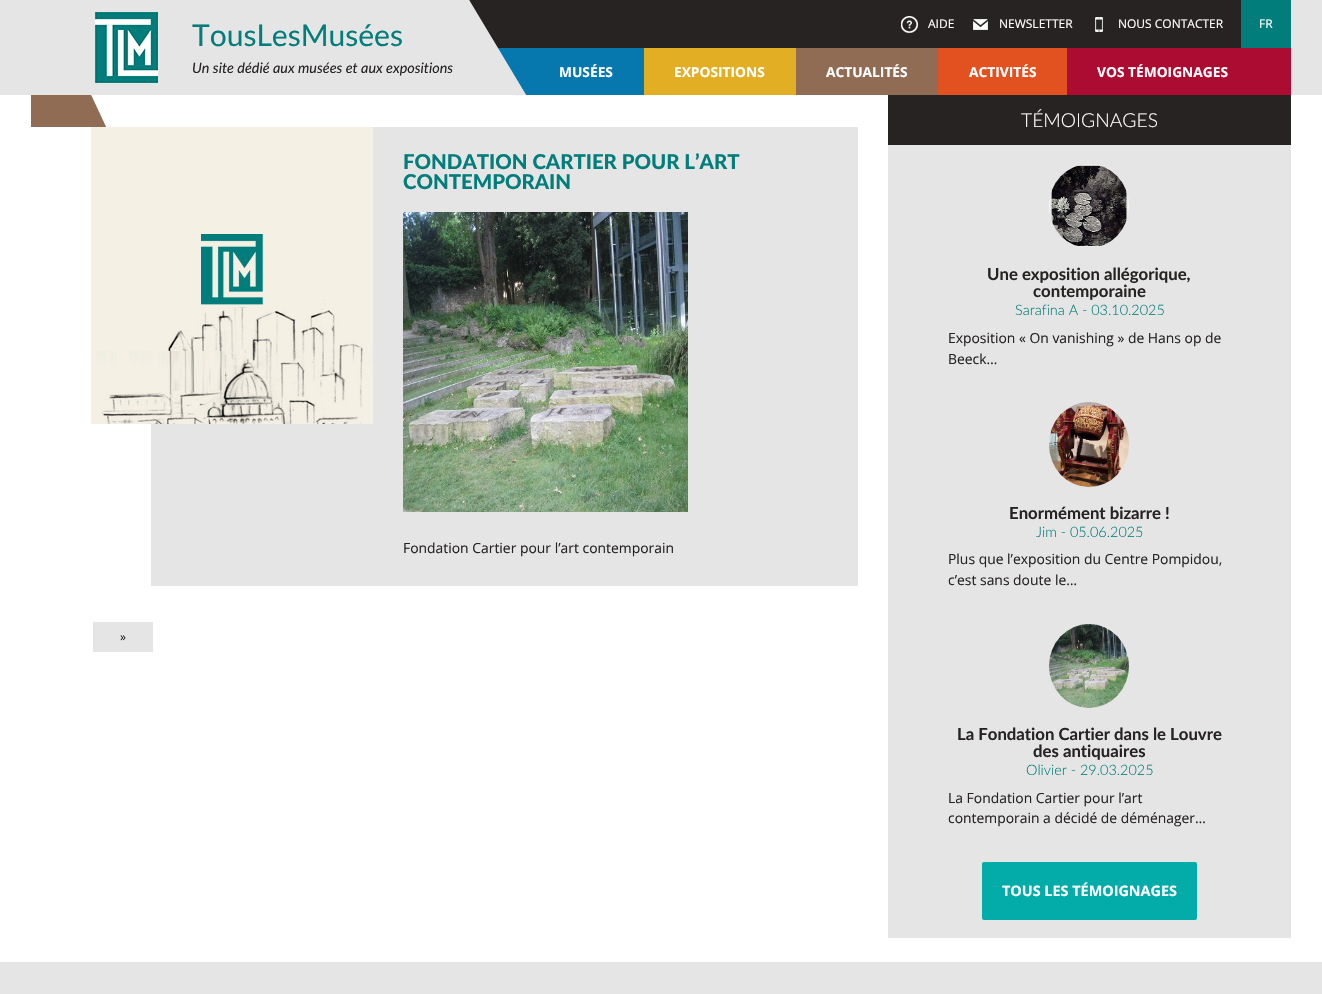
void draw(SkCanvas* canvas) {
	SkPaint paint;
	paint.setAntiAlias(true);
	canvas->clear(0xffe5e5e5);
	canvas->drawImageRect(SkImages::DeferredFromEncodedData(SkData::MakeFromFileName("img1.png")), SkRect::MakeXYWH(95, 12, 63, 71), SkSamplingOptions());
	SkFont f1(fontMgr->matchFamilyStyle("Lato", SkFontStyle::Normal()), 30);
	f1.setSubpixel(true);
	paint.setColor(0xff017e7b);
	canvas->drawString("TousLesMusées", 192, 46, f1, paint);
	SkFont f2(fontMgr->matchFamilyStyle("Lato", SkFontStyle::Italic()), 14.4);
	f2.setSubpixel(true);
	paint.setColor(0xff272323);
	canvas->drawString("Un site dédié aux musées et aux expositions", 192, 73, f2, paint);
	canvas->drawRect(SkRect::MakeXYWH(469, 0, 772, 48), paint);
	paint.setColor(0xff0778ad);
	canvas->drawRect(SkRect::MakeXYWH(498, 48, 146, 47), paint);
	canvas->drawImageRect(SkImages::DeferredFromEncodedData(SkData::MakeFromFileName("img2.png")), SkRect::MakeXYWH(469, 0, 57, 95), SkSamplingOptions());
	canvas->drawImageRect(SkImages::DeferredFromEncodedData(SkData::MakeFromFileName("img3.png")), SkRect::MakeXYWH(901, 16, 17, 17), SkSamplingOptions());
	SkFont f3(fontMgr->matchFamilyStyle("Open Sans", SkFontStyle::Normal()), 12);
	f3.setSubpixel(true);
	paint.setColor(0xffffffff);
	canvas->drawString("AIDE", 928, 28, f3, paint);
	canvas->drawImageRect(SkImages::DeferredFromEncodedData(SkData::MakeFromFileName("img4.png")), SkRect::MakeXYWH(973, 19, 15, 11), SkSamplingOptions());
	canvas->drawString("NEWSLETTER", 999, 28, f3, paint);
	canvas->drawImageRect(SkImages::DeferredFromEncodedData(SkData::MakeFromFileName("img5.png")), SkRect::MakeXYWH(1095, 17, 8, 15), SkSamplingOptions());
	canvas->drawString("NOUS CONTACTER", 1118, 28, f3, paint);
	paint.setColor(0xff017e7b);
	canvas->drawRect(SkRect::MakeXYWH(1241, 0, 50, 48), paint);
	paint.setColor(0xffffffff);
	canvas->drawString("FR", 1259, 28, f3, paint);
	SkFont f4(fontMgr->matchFamilyStyle("Open Sans", SkFontStyle::Bold()), 13.75);
	f4.setSubpixel(true);
	canvas->drawString("MUSÉES", 559, 77, f4, paint);
	paint.setColor(0xffe2ae23);
	canvas->drawRect(SkRect::MakeXYWH(644, 48, 152, 47), paint);
	paint.setColor(0xffffffff);
	canvas->drawString("EXPOSITIONS", 674, 77, f4, paint);
	paint.setColor(0xff8f6c53);
	canvas->drawRect(SkRect::MakeXYWH(796, 48, 142, 47), paint);
	paint.setColor(0xffffffff);
	canvas->drawString("ACTUALITÉS", 826, 77, f4, paint);
	paint.setColor(0xffe15220);
	canvas->drawRect(SkRect::MakeXYWH(938, 48, 129, 47), paint);
	paint.setColor(0xffffffff);
	canvas->drawString("ACTIVITÉS", 969, 77, f4, paint);
	paint.setColor(0xffac0c32);
	canvas->drawRect(SkRect::MakeXYWH(1067, 48, 224, 47), paint);
	paint.setColor(0xffffffff);
	canvas->drawString("VOS TÉMOIGNAGES", 1097, 77, f4, paint);
	canvas->drawRect(SkRect::MakeXYWH(0, 95, 1322, 867), paint);
	canvas->drawImageRect(SkImages::DeferredFromEncodedData(SkData::MakeFromFileName("img6.png")), SkRect::MakeXYWH(31, 95, 75, 32), SkSamplingOptions());
	paint.setColor(0xffe5e5e5);
	canvas->drawRect(SkRect::MakeXYWH(151, 127, 707, 459), paint);
	canvas->drawImageRect(SkImages::DeferredFromEncodedData(SkData::MakeFromFileName("img7.png")), SkRect::MakeXYWH(91, 127, 282, 297), SkSamplingOptions());
	SkFont f5(fontMgr->matchFamilyStyle("Lato", SkFontStyle(900, SkFontStyle::kNormal_Width, SkFontStyle::kUpright_Slant)), 20.4);
	f5.setSubpixel(true);
	paint.setColor(0xff017e7b);
	canvas->drawString("FONDATION CARTIER POUR L’ART", 403, 169, f5, paint);
	canvas->drawString("CONTEMPORAIN", 403, 189, f5, paint);
	canvas->drawImageRect(SkImages::DeferredFromEncodedData(SkData::MakeFromFileName("img8.png")), SkRect::MakeXYWH(403, 212, 285, 300), SkSamplingOptions());
	SkFont f6(fontMgr->matchFamilyStyle("Open Sans", SkFontStyle::Normal()), 13.9);
	f6.setSubpixel(true);
	paint.setColor(0xff272323);
	canvas->drawString("Fondation Cartier pour l’art contemporain", 403, 553, f6, paint);
	paint.setColor(0xffe5e5e5);
	canvas->drawRect(SkRect::MakeXYWH(93, 622, 60, 30), paint);
	paint.setColor(0xff272323);
	canvas->drawString("»", 120, 641, f3, paint);
	paint.setColor(0xffe5e5e5);
	canvas->drawRect(SkRect::MakeXYWH(888, 145, 403, 793), paint);
	paint.setColor(0xff272323);
	canvas->drawRect(SkRect::MakeXYWH(888, 95, 403, 50), paint);
	SkFont f7(fontMgr->matchFamilyStyle("Lato", SkFontStyle(300, SkFontStyle::kNormal_Width, SkFontStyle::kUpright_Slant)), 19.25);
	f7.setSubpixel(true);
	paint.setColor(0xffffffff);
	canvas->drawString("TÉMOIGNAGES", 1021, 127, f7, paint);
	canvas->drawImageRect(SkImages::DeferredFromEncodedData(SkData::MakeFromFileName("img9.png")), SkRect::MakeXYWH(1049, 164, 80, 83), SkSamplingOptions());
	SkFont f8(fontMgr->matchFamilyStyle("Lato", SkFontStyle::Bold()), 16.75);
	f8.setSubpixel(true);
	paint.setColor(0xff272323);
	canvas->drawString("Une exposition allégorique,", 987, 280, f8, paint);
	canvas->drawString("contemporaine", 1033, 297, f8, paint);
	SkFont f9(fontMgr->matchFamilyStyle("Lato", SkFontStyle(300, SkFontStyle::kNormal_Width, SkFontStyle::kUpright_Slant)), 14.4);
	f9.setSubpixel(true);
	paint.setColor(0xff017e7b);
	canvas->drawString("Sarafina A - 03.10.2025", 1015, 315, f9, paint);
	paint.setColor(0xff272323);
	canvas->drawString("Exposition « On vanishing » de Hans op de", 948, 343, f6, paint);
	canvas->drawString("Beeck…", 948, 364, f6, paint);
	canvas->drawImageRect(SkImages::DeferredFromEncodedData(SkData::MakeFromFileName("img10.png")), SkRect::MakeXYWH(1049, 402, 80, 85), SkSamplingOptions());
	canvas->drawString("Enormément bizarre !", 1009, 519, f8, paint);
	paint.setColor(0xff017e7b);
	canvas->drawString("Jim - 05.06.2025", 1036, 537, f9, paint);
	paint.setColor(0xff272323);
	canvas->drawString("Plus que l’exposition du Centre Pompidou,", 948, 564, f6, paint);
	canvas->drawString("c’est sans doute le…", 948, 585, f6, paint);
	canvas->drawImageRect(SkImages::DeferredFromEncodedData(SkData::MakeFromFileName("img11.png")), SkRect::MakeXYWH(1049, 624, 80, 84), SkSamplingOptions());
	canvas->drawString("La Fondation Cartier dans le Louvre", 957, 740, f8, paint);
	canvas->drawString("des antiquaires", 1033, 757, f8, paint);
	paint.setColor(0xff017e7b);
	canvas->drawString("Olivier - 29.03.2025", 1026, 775, f9, paint);
	paint.setColor(0xff272323);
	canvas->drawString("La Fondation Cartier pour l’art", 948, 803, f6, paint);
	canvas->drawString("contemporain a décidé de déménager…", 948, 823, f6, paint);
	paint.setColor(0xff03aca8);
	canvas->drawRoundRect(SkRect::MakeXYWH(982, 862, 215, 58), 2, 2, paint);
	SkFont f10(fontMgr->matchFamilyStyle("Open Sans", SkFontStyle::Bold()), 14.4);
	f10.setSubpixel(true);
	paint.setColor(0xffffffff);
	canvas->drawString("TOUS LES TÉMOIGNAGES", 1002, 896, f10, paint);
}
